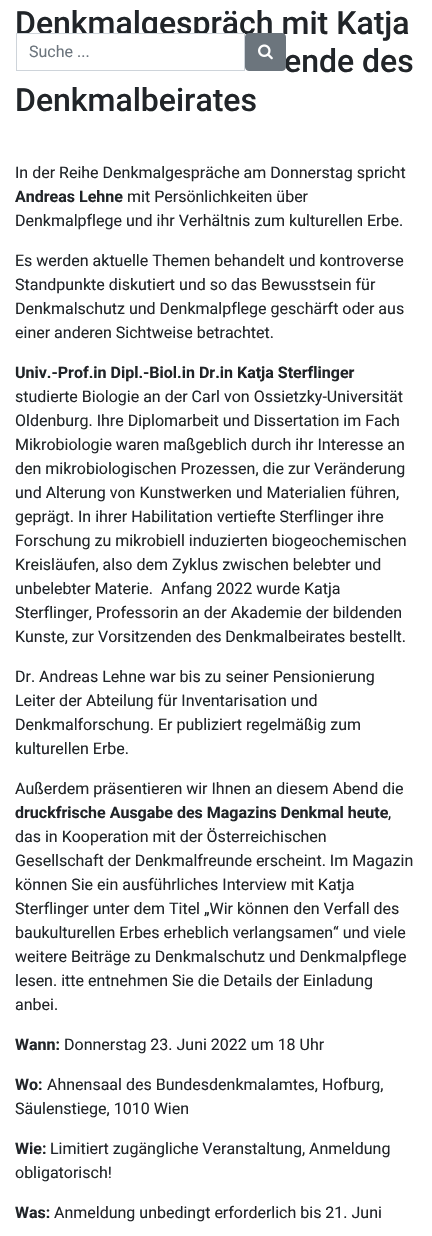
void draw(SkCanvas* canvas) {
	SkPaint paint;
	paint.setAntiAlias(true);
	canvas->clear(0xffffffff);
	SkFont f1(fontMgr->matchFamilyStyle("Roboto", SkFontStyle(500, SkFontStyle::kNormal_Width, SkFontStyle::kUpright_Slant)), 32);
	f1.setSubpixel(true);
	paint.setColor(0xff212529);
	canvas->drawString("Denkmalgespräch mit Katja", 15, 34, f1, paint);
	canvas->drawString("ende des", 284, 72, f1, paint);
	canvas->drawString("Denkmalbeirates", 15, 111, f1, paint);
	SkFont f2(fontMgr->matchFamilyStyle("Roboto", SkFontStyle::Normal()), 16);
	f2.setSubpixel(true);
	canvas->drawString("In der Reihe Denkmalgespräche am Donnerstag spricht", 15, 178, f2, paint);
	SkFont f3(fontMgr->matchFamilyStyle("Roboto", SkFontStyle::Bold()), 16);
	f3.setSubpixel(true);
	canvas->drawString("Andreas Lehne", 15, 202, f3, paint);
	canvas->drawString("mit Persönlichkeiten über", 127, 202, f2, paint);
	canvas->drawString("Denkmalpflege und ihr Verhältnis zum kulturellen Erbe.", 15, 226, f2, paint);
	canvas->drawString("Es werden aktuelle Themen behandelt und kontroverse", 15, 266, f2, paint);
	canvas->drawString("Standpunkte diskutiert und so das Bewusstsein für", 15, 290, f2, paint);
	canvas->drawString("Denkmalschutz und Denkmalpflege geschärft oder aus", 15, 314, f2, paint);
	canvas->drawString("einer anderen Sichtweise betrachtet.", 15, 338, f2, paint);
	canvas->drawString("Univ.-Prof.in Dipl.-Biol.in Dr.in Katja Sterflinger", 15, 378, f3, paint);
	canvas->drawString("studierte Biologie an der Carl von Ossietzky-Universität", 15, 402, f2, paint);
	canvas->drawString("Oldenburg. Ihre Diplomarbeit und Dissertation im Fach", 15, 426, f2, paint);
	canvas->drawString("Mikrobiologie waren maßgeblich durch ihr Interesse an", 15, 450, f2, paint);
	canvas->drawString("den mikrobiologischen Prozessen, die zur Veränderung", 15, 474, f2, paint);
	canvas->drawString("und Alterung von Kunstwerken und Materialien führen,", 15, 498, f2, paint);
	canvas->drawString("geprägt. In ihrer Habilitation vertiefte Sterflinger ihre", 15, 522, f2, paint);
	canvas->drawString("Forschung zu mikrobiell induzierten biogeochemischen", 15, 546, f2, paint);
	canvas->drawString("Kreisläufen, also dem Zyklus zwischen belebter und", 15, 570, f2, paint);
	canvas->drawString("unbelebter Materie.  Anfang 2022 wurde Katja", 15, 594, f2, paint);
	canvas->drawString("Sterflinger, Professorin an der Akademie der bildenden", 15, 618, f2, paint);
	canvas->drawString("Kunste, zur Vorsitzenden des Denkmalbeirates bestellt.", 15, 642, f2, paint);
	canvas->drawString("Dr. Andreas Lehne war bis zu seiner Pensionierung", 15, 682, f2, paint);
	canvas->drawString("Leiter der Abteilung für Inventarisation und", 15, 706, f2, paint);
	canvas->drawString("Denkmalforschung. Er publiziert regelmäßig zum", 15, 730, f2, paint);
	canvas->drawString("kulturellen Erbe.", 15, 754, f2, paint);
	canvas->drawString("Außerdem präsentieren wir Ihnen an diesem Abend die", 15, 794, f2, paint);
	canvas->drawString("druckfrische Ausgabe des Magazins Denkmal heute", 15, 818, f3, paint);
	canvas->drawString(",", 388, 818, f2, paint);
	canvas->drawString("das in Kooperation mit der Österreichischen", 15, 842, f2, paint);
	canvas->drawString("Gesellschaft der Denkmalfreunde erscheint. Im Magazin", 15, 866, f2, paint);
	canvas->drawString("können Sie ein ausführliches Interview mit Katja", 15, 890, f2, paint);
	canvas->drawString("Sterflinger unter dem Titel „Wir können den Verfall des", 15, 914, f2, paint);
	canvas->drawString("baukulturellen Erbes erheblich verlangsamen“ und viele", 15, 938, f2, paint);
	canvas->drawString("weitere Beiträge zu Denkmalschutz und Denkmalpflege", 15, 962, f2, paint);
	canvas->drawString("lesen. itte entnehmen Sie die Details der Einladung", 15, 986, f2, paint);
	canvas->drawString("anbei.", 15, 1010, f2, paint);
	canvas->drawString("Wann:", 15, 1050, f3, paint);
	canvas->drawString("Donnerstag 23. Juni 2022 um 18 Uhr", 64, 1050, f2, paint);
	canvas->drawString("Wo:", 15, 1090, f3, paint);
	canvas->drawString("Ahnensaal des Bundesdenkmalamtes, Hofburg,", 47, 1090, f2, paint);
	canvas->drawString("Säulenstiege, 1010 Wien", 15, 1114, f2, paint);
	canvas->drawString("Wie:", 15, 1154, f3, paint);
	canvas->drawString("Limitiert zugängliche Veranstaltung, Anmeldung", 50, 1154, f2, paint);
	canvas->drawString("obligatorisch!", 15, 1178, f2, paint);
	canvas->drawString("Was:", 15, 1218, f3, paint);
	canvas->drawString("Anmeldung unbedingt erforderlich bis 21. Juni", 54, 1218, f2, paint);
	paint.setColor(0xffffffff);
	canvas->drawRect(SkRect::MakeXYWH(43, 34, 188, 7), paint);
	paint.setStroke(true);
	paint.setStrokeWidth(1);
	paint.setColor(0xffced4da);
	canvas->drawRect(SkRect::MakeXYWH(16.5, 33.5, 228, 37), paint);
	paint.setStroke(false);
	paint.setColor(0xff6c757d);
	canvas->drawString("Suche ...", 29, 57, f2, paint);
	canvas->drawRoundRect(SkRect::MakeXYWH(245.5, 33.5, 40, 37), 3.5, 3.5, paint);
	paint.setStroke(true);
	canvas->drawRoundRect(SkRect::MakeXYWH(245.5, 33.5, 40, 37), 3.5, 3.5, paint);
	canvas->drawImageRect(SkImages::DeferredFromEncodedData(SkData::MakeFromFileName("img1.png")), SkRect::MakeXYWH(258, 44, 15, 16), SkSamplingOptions());
}
